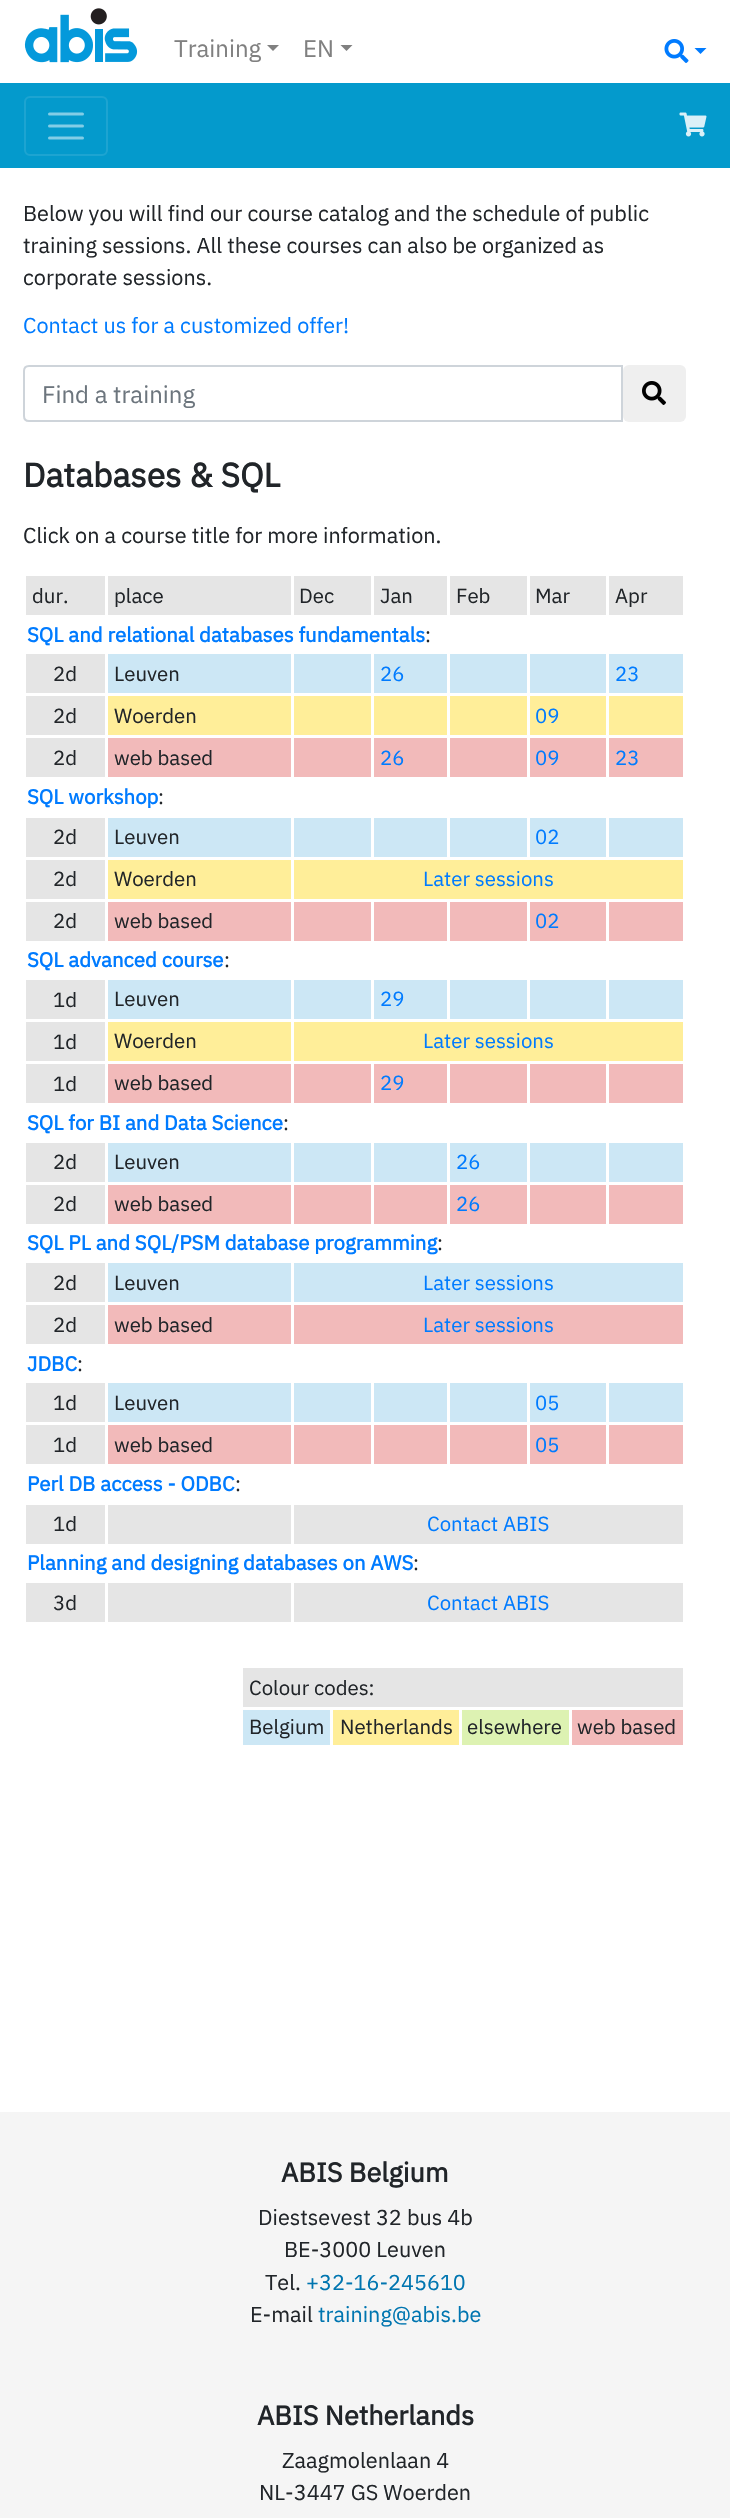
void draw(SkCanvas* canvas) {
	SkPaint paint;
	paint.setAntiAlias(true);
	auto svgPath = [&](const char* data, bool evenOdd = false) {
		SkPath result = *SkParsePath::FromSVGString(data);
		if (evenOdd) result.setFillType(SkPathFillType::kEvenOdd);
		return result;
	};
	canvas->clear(0xffffffff);
	canvas->drawImageRect(SkImages::DeferredFromEncodedData(SkData::MakeFromFileName("img1.png")), SkRect::MakeXYWH(24, 8, 114, 55), SkSamplingOptions());
	SkFont f1(fontMgr->matchFamilyStyle("IBM Plex Sans", SkFontStyle::Normal()), 24);
	f1.setSubpixel(true);
	paint.setColor(0xff808080);
	canvas->drawString("Training", 174, 57, f1, paint);
	canvas->drawPath(svgPath("M267 45H279L273 51Z"), paint);
	canvas->drawString("EN", 303, 57, f1, paint);
	canvas->drawPath(svgPath("M340.5 45H352.5L346.5 51Z"), paint);
	canvas->drawImageRect(SkImages::DeferredFromEncodedData(SkData::MakeFromFileName("img2.png")), SkRect::MakeXYWH(664, 39, 25, 24), SkSamplingOptions());
	paint.setColor(0xff007bff);
	canvas->drawPath(svgPath("M694.5 48H706.5L700.5 54Z"), paint);
	paint.setColor(0xff049acc);
	canvas->drawRect(SkRect::MakeXYWH(0, 83, 730, 85), paint);
	paint.setStroke(true);
	paint.setStrokeWidth(2);
	paint.setColor(0xff1da4d1);
	canvas->drawRoundRect(SkRect::MakeXYWH(25, 97, 82, 58), 5, 5, paint);
	paint.setStrokeWidth(3);
	paint.setStrokeCap(SkPaint::kRound_Cap);
	paint.setColor(0xff82cde6);
	canvas->drawPath(svgPath("M49.5 114H82.5M49.5 126H82.5M49.5 138H82.5"), paint);
	canvas->drawImageRect(SkImages::DeferredFromEncodedData(SkData::MakeFromFileName("img3.png")), SkRect::MakeXYWH(679, 112, 28, 25), SkSamplingOptions());
	SkFont f2(fontMgr->matchFamilyStyle("IBM Plex Sans", SkFontStyle::Normal()), 21.6);
	f2.setSubpixel(true);
	paint.setStroke(false);
	paint.setColor(0xff212529);
	canvas->drawString("Below you will find our course catalog and the schedule of public", 23, 221, f2, paint);
	canvas->drawString("training sessions. All these courses can also be organized as", 23, 253, f2, paint);
	canvas->drawString("corporate sessions.", 23, 285, f2, paint);
	paint.setColor(0xff007bff);
	canvas->drawString("Contact us for a customized offer!", 23, 333, f2, paint);
	paint.setStroke(true);
	paint.setStrokeWidth(2);
	paint.setStrokeCap(SkPaint::kButt_Cap);
	paint.setColor(0xffced4da);
	canvas->drawPath(svgPath("M29 366H622V421H29C26 421 24 419 24 416V371C24 368 26 366 29 366Z"), paint);
	paint.setStroke(false);
	paint.setColor(0xff6c757d);
	canvas->drawString("Find a training", 42, 403, f1, paint);
	paint.setColor(0xffefefef);
	canvas->drawRoundRect(SkRect::MakeXYWH(623, 365, 63, 57), 6, 6, paint);
	canvas->drawImageRect(SkImages::DeferredFromEncodedData(SkData::MakeFromFileName("img4.png")), SkRect::MakeXYWH(642, 381, 24, 24), SkSamplingOptions());
	SkFont f3(fontMgr->matchFamilyStyle("IBM Plex Sans", SkFontStyle::Bold()), 33.5);
	f3.setSubpixel(true);
	paint.setColor(0xff212529);
	canvas->drawString("Databases & SQL", 23, 487, f3, paint);
	canvas->drawString("Click on a course title for more information.", 23, 543, f2, paint);
	paint.setColor(0xffe5e5e5);
	canvas->drawRect(SkRect::MakeXYWH(26, 576, 79, 39), paint);
	SkFont f4(fontMgr->matchFamilyStyle("IBM Plex Sans", SkFontStyle::Normal()), 20.4);
	f4.setSubpixel(true);
	paint.setColor(0xff212529);
	canvas->drawString("dur.", 32, 603, f4, paint);
	paint.setColor(0xffe5e5e5);
	canvas->drawRect(SkRect::MakeXYWH(108, 576, 183, 39), paint);
	paint.setColor(0xff212529);
	canvas->drawString("place", 114, 603, f4, paint);
	paint.setColor(0xffe5e5e5);
	canvas->drawRect(SkRect::MakeXYWH(294, 576, 77, 39), paint);
	paint.setColor(0xff212529);
	canvas->drawString("Dec", 299, 603, f4, paint);
	paint.setColor(0xffe5e5e5);
	canvas->drawRect(SkRect::MakeXYWH(374, 576, 73, 39), paint);
	paint.setColor(0xff212529);
	canvas->drawString("Jan", 380, 603, f4, paint);
	paint.setColor(0xffe5e5e5);
	canvas->drawRect(SkRect::MakeXYWH(450, 576, 77, 39), paint);
	paint.setColor(0xff212529);
	canvas->drawString("Feb", 456, 603, f4, paint);
	paint.setColor(0xffe5e5e5);
	canvas->drawRect(SkRect::MakeXYWH(530, 576, 76, 39), paint);
	paint.setColor(0xff212529);
	canvas->drawString("Mar", 535, 603, f4, paint);
	paint.setColor(0xffe5e5e5);
	canvas->drawRect(SkRect::MakeXYWH(609, 576, 74, 39), paint);
	paint.setColor(0xff212529);
	canvas->drawString("Apr", 615, 603, f4, paint);
	SkFont f5(fontMgr->matchFamilyStyle("IBM Plex Sans", SkFontStyle::Bold()), 20.4);
	f5.setSubpixel(true);
	paint.setColor(0xff007bff);
	canvas->drawString("SQL and relational databases fundamentals", 27, 642, f5, paint);
	paint.setColor(0xff212529);
	canvas->drawString(":", 425, 642, f4, paint);
	paint.setColor(0xffe5e5e5);
	canvas->drawRect(SkRect::MakeXYWH(26, 654, 79, 39), paint);
	paint.setColor(0xff212529);
	canvas->drawString("2d", 53, 681, f4, paint);
	paint.setColor(0xffcce7f5);
	canvas->drawRect(SkRect::MakeXYWH(108, 654, 183, 39), paint);
	paint.setColor(0xff212529);
	canvas->drawString("Leuven", 114, 681, f4, paint);
	paint.setColor(0xffcce7f5);
	canvas->drawRect(SkRect::MakeXYWH(294, 654, 77, 39), paint);
	canvas->drawRect(SkRect::MakeXYWH(374, 654, 73, 39), paint);
	paint.setColor(0xff007bff);
	canvas->drawString("26", 380, 681, f4, paint);
	paint.setColor(0xffcce7f5);
	canvas->drawRect(SkRect::MakeXYWH(450, 654, 77, 39), paint);
	canvas->drawRect(SkRect::MakeXYWH(530, 654, 76, 39), paint);
	canvas->drawRect(SkRect::MakeXYWH(609, 654, 74, 39), paint);
	paint.setColor(0xff007bff);
	canvas->drawString("23", 615, 681, f4, paint);
	paint.setColor(0xffe5e5e5);
	canvas->drawRect(SkRect::MakeXYWH(26, 696, 79, 39), paint);
	paint.setColor(0xff212529);
	canvas->drawString("2d", 53, 723, f4, paint);
	paint.setColor(0xffffee99);
	canvas->drawRect(SkRect::MakeXYWH(108, 696, 183, 39), paint);
	paint.setColor(0xff212529);
	canvas->drawString("Woerden", 114, 723, f4, paint);
	paint.setColor(0xffffee99);
	canvas->drawRect(SkRect::MakeXYWH(294, 696, 77, 39), paint);
	canvas->drawRect(SkRect::MakeXYWH(374, 696, 73, 39), paint);
	canvas->drawRect(SkRect::MakeXYWH(450, 696, 77, 39), paint);
	canvas->drawRect(SkRect::MakeXYWH(530, 696, 76, 39), paint);
	paint.setColor(0xff007bff);
	canvas->drawString("09", 535, 723, f4, paint);
	paint.setColor(0xffffee99);
	canvas->drawRect(SkRect::MakeXYWH(609, 696, 74, 39), paint);
	paint.setColor(0xffe5e5e5);
	canvas->drawRect(SkRect::MakeXYWH(26, 738, 79, 39), paint);
	paint.setColor(0xff212529);
	canvas->drawString("2d", 53, 765, f4, paint);
	paint.setColor(0xfff2baba);
	canvas->drawRect(SkRect::MakeXYWH(108, 738, 183, 39), paint);
	paint.setColor(0xff212529);
	canvas->drawString("web based", 114, 765, f4, paint);
	paint.setColor(0xfff2baba);
	canvas->drawRect(SkRect::MakeXYWH(294, 738, 77, 39), paint);
	canvas->drawRect(SkRect::MakeXYWH(374, 738, 73, 39), paint);
	paint.setColor(0xff007bff);
	canvas->drawString("26", 380, 765, f4, paint);
	paint.setColor(0xfff2baba);
	canvas->drawRect(SkRect::MakeXYWH(450, 738, 77, 39), paint);
	canvas->drawRect(SkRect::MakeXYWH(530, 738, 76, 39), paint);
	paint.setColor(0xff007bff);
	canvas->drawString("09", 535, 765, f4, paint);
	paint.setColor(0xfff2baba);
	canvas->drawRect(SkRect::MakeXYWH(609, 738, 74, 39), paint);
	paint.setColor(0xff007bff);
	canvas->drawString("23", 615, 765, f4, paint);
	canvas->drawString("SQL workshop", 27, 804, f5, paint);
	paint.setColor(0xff212529);
	canvas->drawString(":", 158, 804, f4, paint);
	paint.setColor(0xffe5e5e5);
	canvas->drawRect(SkRect::MakeXYWH(26, 818, 79, 39), paint);
	paint.setColor(0xff212529);
	canvas->drawString("2d", 53, 844, f4, paint);
	paint.setColor(0xffcce7f5);
	canvas->drawRect(SkRect::MakeXYWH(108, 818, 183, 39), paint);
	paint.setColor(0xff212529);
	canvas->drawString("Leuven", 114, 844, f4, paint);
	paint.setColor(0xffcce7f5);
	canvas->drawRect(SkRect::MakeXYWH(294, 818, 77, 39), paint);
	canvas->drawRect(SkRect::MakeXYWH(374, 818, 73, 39), paint);
	canvas->drawRect(SkRect::MakeXYWH(450, 818, 77, 39), paint);
	canvas->drawRect(SkRect::MakeXYWH(530, 818, 76, 39), paint);
	paint.setColor(0xff007bff);
	canvas->drawString("02", 535, 844, f4, paint);
	paint.setColor(0xffcce7f5);
	canvas->drawRect(SkRect::MakeXYWH(609, 818, 74, 39), paint);
	paint.setColor(0xffe5e5e5);
	canvas->drawRect(SkRect::MakeXYWH(26, 860, 79, 39), paint);
	paint.setColor(0xff212529);
	canvas->drawString("2d", 53, 886, f4, paint);
	paint.setColor(0xffffee99);
	canvas->drawRect(SkRect::MakeXYWH(108, 860, 183, 39), paint);
	paint.setColor(0xff212529);
	canvas->drawString("Woerden", 114, 886, f4, paint);
	paint.setColor(0xffffee99);
	canvas->drawRect(SkRect::MakeXYWH(294, 860, 389, 39), paint);
	paint.setColor(0xff007bff);
	canvas->drawString("Later sessions", 423, 886, f4, paint);
	paint.setColor(0xffe5e5e5);
	canvas->drawRect(SkRect::MakeXYWH(26, 902, 79, 39), paint);
	paint.setColor(0xff212529);
	canvas->drawString("2d", 53, 928, f4, paint);
	paint.setColor(0xfff2baba);
	canvas->drawRect(SkRect::MakeXYWH(108, 902, 183, 39), paint);
	paint.setColor(0xff212529);
	canvas->drawString("web based", 114, 928, f4, paint);
	paint.setColor(0xfff2baba);
	canvas->drawRect(SkRect::MakeXYWH(294, 902, 77, 39), paint);
	canvas->drawRect(SkRect::MakeXYWH(374, 902, 73, 39), paint);
	canvas->drawRect(SkRect::MakeXYWH(450, 902, 77, 39), paint);
	canvas->drawRect(SkRect::MakeXYWH(530, 902, 76, 39), paint);
	paint.setColor(0xff007bff);
	canvas->drawString("02", 535, 928, f4, paint);
	paint.setColor(0xfff2baba);
	canvas->drawRect(SkRect::MakeXYWH(609, 902, 74, 39), paint);
	paint.setColor(0xff007bff);
	canvas->drawString("SQL advanced course", 27, 967, f5, paint);
	paint.setColor(0xff212529);
	canvas->drawString(":", 224, 967, f4, paint);
	paint.setColor(0xffe5e5e5);
	canvas->drawRect(SkRect::MakeXYWH(26, 980, 79, 39), paint);
	paint.setColor(0xff212529);
	canvas->drawString("1d", 53, 1007, f4, paint);
	paint.setColor(0xffcce7f5);
	canvas->drawRect(SkRect::MakeXYWH(108, 980, 183, 39), paint);
	paint.setColor(0xff212529);
	canvas->drawString("Leuven", 114, 1006, f4, paint);
	paint.setColor(0xffcce7f5);
	canvas->drawRect(SkRect::MakeXYWH(294, 980, 77, 39), paint);
	canvas->drawRect(SkRect::MakeXYWH(374, 980, 73, 39), paint);
	paint.setColor(0xff007bff);
	canvas->drawString("29", 380, 1006, f4, paint);
	paint.setColor(0xffcce7f5);
	canvas->drawRect(SkRect::MakeXYWH(450, 980, 77, 39), paint);
	canvas->drawRect(SkRect::MakeXYWH(530, 980, 76, 39), paint);
	canvas->drawRect(SkRect::MakeXYWH(609, 980, 74, 39), paint);
	paint.setColor(0xffe5e5e5);
	canvas->drawRect(SkRect::MakeXYWH(26, 1022, 79, 39), paint);
	paint.setColor(0xff212529);
	canvas->drawString("1d", 53, 1049, f4, paint);
	paint.setColor(0xffffee99);
	canvas->drawRect(SkRect::MakeXYWH(108, 1022, 183, 39), paint);
	paint.setColor(0xff212529);
	canvas->drawString("Woerden", 114, 1048, f4, paint);
	paint.setColor(0xffffee99);
	canvas->drawRect(SkRect::MakeXYWH(294, 1022, 389, 39), paint);
	paint.setColor(0xff007bff);
	canvas->drawString("Later sessions", 423, 1048, f4, paint);
	paint.setColor(0xffe5e5e5);
	canvas->drawRect(SkRect::MakeXYWH(26, 1064, 79, 39), paint);
	paint.setColor(0xff212529);
	canvas->drawString("1d", 53, 1091, f4, paint);
	paint.setColor(0xfff2baba);
	canvas->drawRect(SkRect::MakeXYWH(108, 1064, 183, 39), paint);
	paint.setColor(0xff212529);
	canvas->drawString("web based", 114, 1090, f4, paint);
	paint.setColor(0xfff2baba);
	canvas->drawRect(SkRect::MakeXYWH(294, 1064, 77, 39), paint);
	canvas->drawRect(SkRect::MakeXYWH(374, 1064, 73, 39), paint);
	paint.setColor(0xff007bff);
	canvas->drawString("29", 380, 1090, f4, paint);
	paint.setColor(0xfff2baba);
	canvas->drawRect(SkRect::MakeXYWH(450, 1064, 77, 39), paint);
	canvas->drawRect(SkRect::MakeXYWH(530, 1064, 76, 39), paint);
	canvas->drawRect(SkRect::MakeXYWH(609, 1064, 74, 39), paint);
	paint.setColor(0xff007bff);
	canvas->drawString("SQL for BI and Data Science", 27, 1130, f5, paint);
	paint.setColor(0xff212529);
	canvas->drawString(":", 283, 1130, f4, paint);
	paint.setColor(0xffe5e5e5);
	canvas->drawRect(SkRect::MakeXYWH(26, 1143, 79, 39), paint);
	paint.setColor(0xff212529);
	canvas->drawString("2d", 53, 1169, f4, paint);
	paint.setColor(0xffcce7f5);
	canvas->drawRect(SkRect::MakeXYWH(108, 1143, 183, 39), paint);
	paint.setColor(0xff212529);
	canvas->drawString("Leuven", 114, 1169, f4, paint);
	paint.setColor(0xffcce7f5);
	canvas->drawRect(SkRect::MakeXYWH(294, 1143, 77, 39), paint);
	canvas->drawRect(SkRect::MakeXYWH(374, 1143, 73, 39), paint);
	canvas->drawRect(SkRect::MakeXYWH(450, 1143, 77, 39), paint);
	paint.setColor(0xff007bff);
	canvas->drawString("26", 456, 1169, f4, paint);
	paint.setColor(0xffcce7f5);
	canvas->drawRect(SkRect::MakeXYWH(530, 1143, 76, 39), paint);
	canvas->drawRect(SkRect::MakeXYWH(609, 1143, 74, 39), paint);
	paint.setColor(0xffe5e5e5);
	canvas->drawRect(SkRect::MakeXYWH(26, 1185, 79, 39), paint);
	paint.setColor(0xff212529);
	canvas->drawString("2d", 53, 1211, f4, paint);
	paint.setColor(0xfff2baba);
	canvas->drawRect(SkRect::MakeXYWH(108, 1185, 183, 39), paint);
	paint.setColor(0xff212529);
	canvas->drawString("web based", 114, 1211, f4, paint);
	paint.setColor(0xfff2baba);
	canvas->drawRect(SkRect::MakeXYWH(294, 1185, 77, 39), paint);
	canvas->drawRect(SkRect::MakeXYWH(374, 1185, 73, 39), paint);
	canvas->drawRect(SkRect::MakeXYWH(450, 1185, 77, 39), paint);
	paint.setColor(0xff007bff);
	canvas->drawString("26", 456, 1211, f4, paint);
	paint.setColor(0xfff2baba);
	canvas->drawRect(SkRect::MakeXYWH(530, 1185, 76, 39), paint);
	canvas->drawRect(SkRect::MakeXYWH(609, 1185, 74, 39), paint);
	paint.setColor(0xff007bff);
	canvas->drawString("SQL PL and SQL/PSM database programming", 27, 1250, f5, paint);
	paint.setColor(0xff212529);
	canvas->drawString(":", 437, 1250, f4, paint);
	paint.setColor(0xffe5e5e5);
	canvas->drawRect(SkRect::MakeXYWH(26, 1263, 79, 39), paint);
	paint.setColor(0xff212529);
	canvas->drawString("2d", 53, 1290, f4, paint);
	paint.setColor(0xffcce7f5);
	canvas->drawRect(SkRect::MakeXYWH(108, 1263, 183, 39), paint);
	paint.setColor(0xff212529);
	canvas->drawString("Leuven", 114, 1290, f4, paint);
	paint.setColor(0xffcce7f5);
	canvas->drawRect(SkRect::MakeXYWH(294, 1263, 389, 39), paint);
	paint.setColor(0xff007bff);
	canvas->drawString("Later sessions", 423, 1290, f4, paint);
	paint.setColor(0xffe5e5e5);
	canvas->drawRect(SkRect::MakeXYWH(26, 1305, 79, 39), paint);
	paint.setColor(0xff212529);
	canvas->drawString("2d", 53, 1332, f4, paint);
	paint.setColor(0xfff2baba);
	canvas->drawRect(SkRect::MakeXYWH(108, 1305, 183, 39), paint);
	paint.setColor(0xff212529);
	canvas->drawString("web based", 114, 1332, f4, paint);
	paint.setColor(0xfff2baba);
	canvas->drawRect(SkRect::MakeXYWH(294, 1305, 389, 39), paint);
	paint.setColor(0xff007bff);
	canvas->drawString("Later sessions", 423, 1332, f4, paint);
	canvas->drawString("JDBC", 27, 1371, f5, paint);
	paint.setColor(0xff212529);
	canvas->drawString(":", 77, 1371, f4, paint);
	paint.setColor(0xffe5e5e5);
	canvas->drawRect(SkRect::MakeXYWH(26, 1383, 79, 39), paint);
	paint.setColor(0xff212529);
	canvas->drawString("1d", 53, 1410, f4, paint);
	paint.setColor(0xffcce7f5);
	canvas->drawRect(SkRect::MakeXYWH(108, 1383, 183, 39), paint);
	paint.setColor(0xff212529);
	canvas->drawString("Leuven", 114, 1410, f4, paint);
	paint.setColor(0xffcce7f5);
	canvas->drawRect(SkRect::MakeXYWH(294, 1383, 77, 39), paint);
	canvas->drawRect(SkRect::MakeXYWH(374, 1383, 73, 39), paint);
	canvas->drawRect(SkRect::MakeXYWH(450, 1383, 77, 39), paint);
	canvas->drawRect(SkRect::MakeXYWH(530, 1383, 76, 39), paint);
	paint.setColor(0xff007bff);
	canvas->drawString("05", 535, 1410, f4, paint);
	paint.setColor(0xffcce7f5);
	canvas->drawRect(SkRect::MakeXYWH(609, 1383, 74, 39), paint);
	paint.setColor(0xffe5e5e5);
	canvas->drawRect(SkRect::MakeXYWH(26, 1425, 79, 39), paint);
	paint.setColor(0xff212529);
	canvas->drawString("1d", 53, 1452, f4, paint);
	paint.setColor(0xfff2baba);
	canvas->drawRect(SkRect::MakeXYWH(108, 1425, 183, 39), paint);
	paint.setColor(0xff212529);
	canvas->drawString("web based", 114, 1452, f4, paint);
	paint.setColor(0xfff2baba);
	canvas->drawRect(SkRect::MakeXYWH(294, 1425, 77, 39), paint);
	canvas->drawRect(SkRect::MakeXYWH(374, 1425, 73, 39), paint);
	canvas->drawRect(SkRect::MakeXYWH(450, 1425, 77, 39), paint);
	canvas->drawRect(SkRect::MakeXYWH(530, 1425, 76, 39), paint);
	paint.setColor(0xff007bff);
	canvas->drawString("05", 535, 1452, f4, paint);
	paint.setColor(0xfff2baba);
	canvas->drawRect(SkRect::MakeXYWH(609, 1425, 74, 39), paint);
	paint.setColor(0xff007bff);
	canvas->drawString("Perl DB access - ODBC", 27, 1491, f5, paint);
	paint.setColor(0xff212529);
	canvas->drawString(":", 235, 1491, f4, paint);
	paint.setColor(0xffe5e5e5);
	canvas->drawRect(SkRect::MakeXYWH(26, 1505, 79, 39), paint);
	paint.setColor(0xff212529);
	canvas->drawString("1d", 53, 1531, f4, paint);
	paint.setColor(0xffe5e5e5);
	canvas->drawRect(SkRect::MakeXYWH(108, 1505, 183, 39), paint);
	canvas->drawRect(SkRect::MakeXYWH(294, 1505, 389, 39), paint);
	paint.setColor(0xff007bff);
	canvas->drawString("Contact ABIS", 427, 1531, f4, paint);
	canvas->drawString("Planning and designing databases on AWS", 27, 1570, f5, paint);
	paint.setColor(0xff212529);
	canvas->drawString(":", 413, 1570, f4, paint);
	paint.setColor(0xffe5e5e5);
	canvas->drawRect(SkRect::MakeXYWH(26, 1583, 79, 39), paint);
	paint.setColor(0xff212529);
	canvas->drawString("3d", 53, 1610, f4, paint);
	paint.setColor(0xffe5e5e5);
	canvas->drawRect(SkRect::MakeXYWH(108, 1583, 183, 39), paint);
	canvas->drawRect(SkRect::MakeXYWH(294, 1583, 389, 39), paint);
	paint.setColor(0xff007bff);
	canvas->drawString("Contact ABIS", 427, 1610, f4, paint);
	paint.setColor(0xffe5e5e5);
	canvas->drawRect(SkRect::MakeXYWH(243, 1668, 440, 39), paint);
	paint.setColor(0xff212529);
	canvas->drawString("Colour codes:", 249, 1695, f4, paint);
	paint.setColor(0xffcce7f5);
	canvas->drawRect(SkRect::MakeXYWH(243, 1710, 87, 35), paint);
	paint.setColor(0xff212529);
	canvas->drawString("Belgium", 249, 1734, f4, paint);
	paint.setColor(0xffffee99);
	canvas->drawRect(SkRect::MakeXYWH(333, 1710, 126, 35), paint);
	paint.setColor(0xff212529);
	canvas->drawString("Netherlands", 340, 1734, f4, paint);
	paint.setColor(0xffddf2b2);
	canvas->drawRect(SkRect::MakeXYWH(462, 1710, 107, 35), paint);
	paint.setColor(0xff212529);
	canvas->drawString("elsewhere", 467, 1734, f4, paint);
	paint.setColor(0xfff2baba);
	canvas->drawRect(SkRect::MakeXYWH(572, 1710, 111, 35), paint);
	paint.setColor(0xff212529);
	canvas->drawString("web based", 577, 1734, f4, paint);
	paint.setColor(0xfff5f5f5);
	canvas->drawRect(SkRect::MakeXYWH(0, 2112, 730, 406), paint);
	SkFont f6(fontMgr->matchFamilyStyle("IBM Plex Sans", SkFontStyle::Bold()), 27);
	f6.setSubpixel(true);
	paint.setColor(0xff212529);
	canvas->drawString("ABIS Belgium", 281, 2182, f6, paint);
	canvas->drawString("Diestsevest 32 bus 4b", 258, 2225, f2, paint);
	canvas->drawString("BE-3000 Leuven", 284, 2257, f2, paint);
	canvas->drawString("Tel.", 265, 2290, f2, paint);
	paint.setColor(0xff0075b0);
	canvas->drawString("+32-16-245610", 306, 2290, f2, paint);
	paint.setColor(0xff212529);
	canvas->drawString("E-mail", 250, 2322, f2, paint);
	paint.setColor(0xff0075b0);
	canvas->drawString("training@abis.be", 318, 2322, f2, paint);
	paint.setColor(0xff212529);
	canvas->drawString("ABIS Netherlands", 257, 2425, f6, paint);
	canvas->drawString("Zaagmolenlaan 4", 282, 2468, f2, paint);
	canvas->drawString("NL-3447 GS Woerden", 259, 2500, f2, paint);
}
